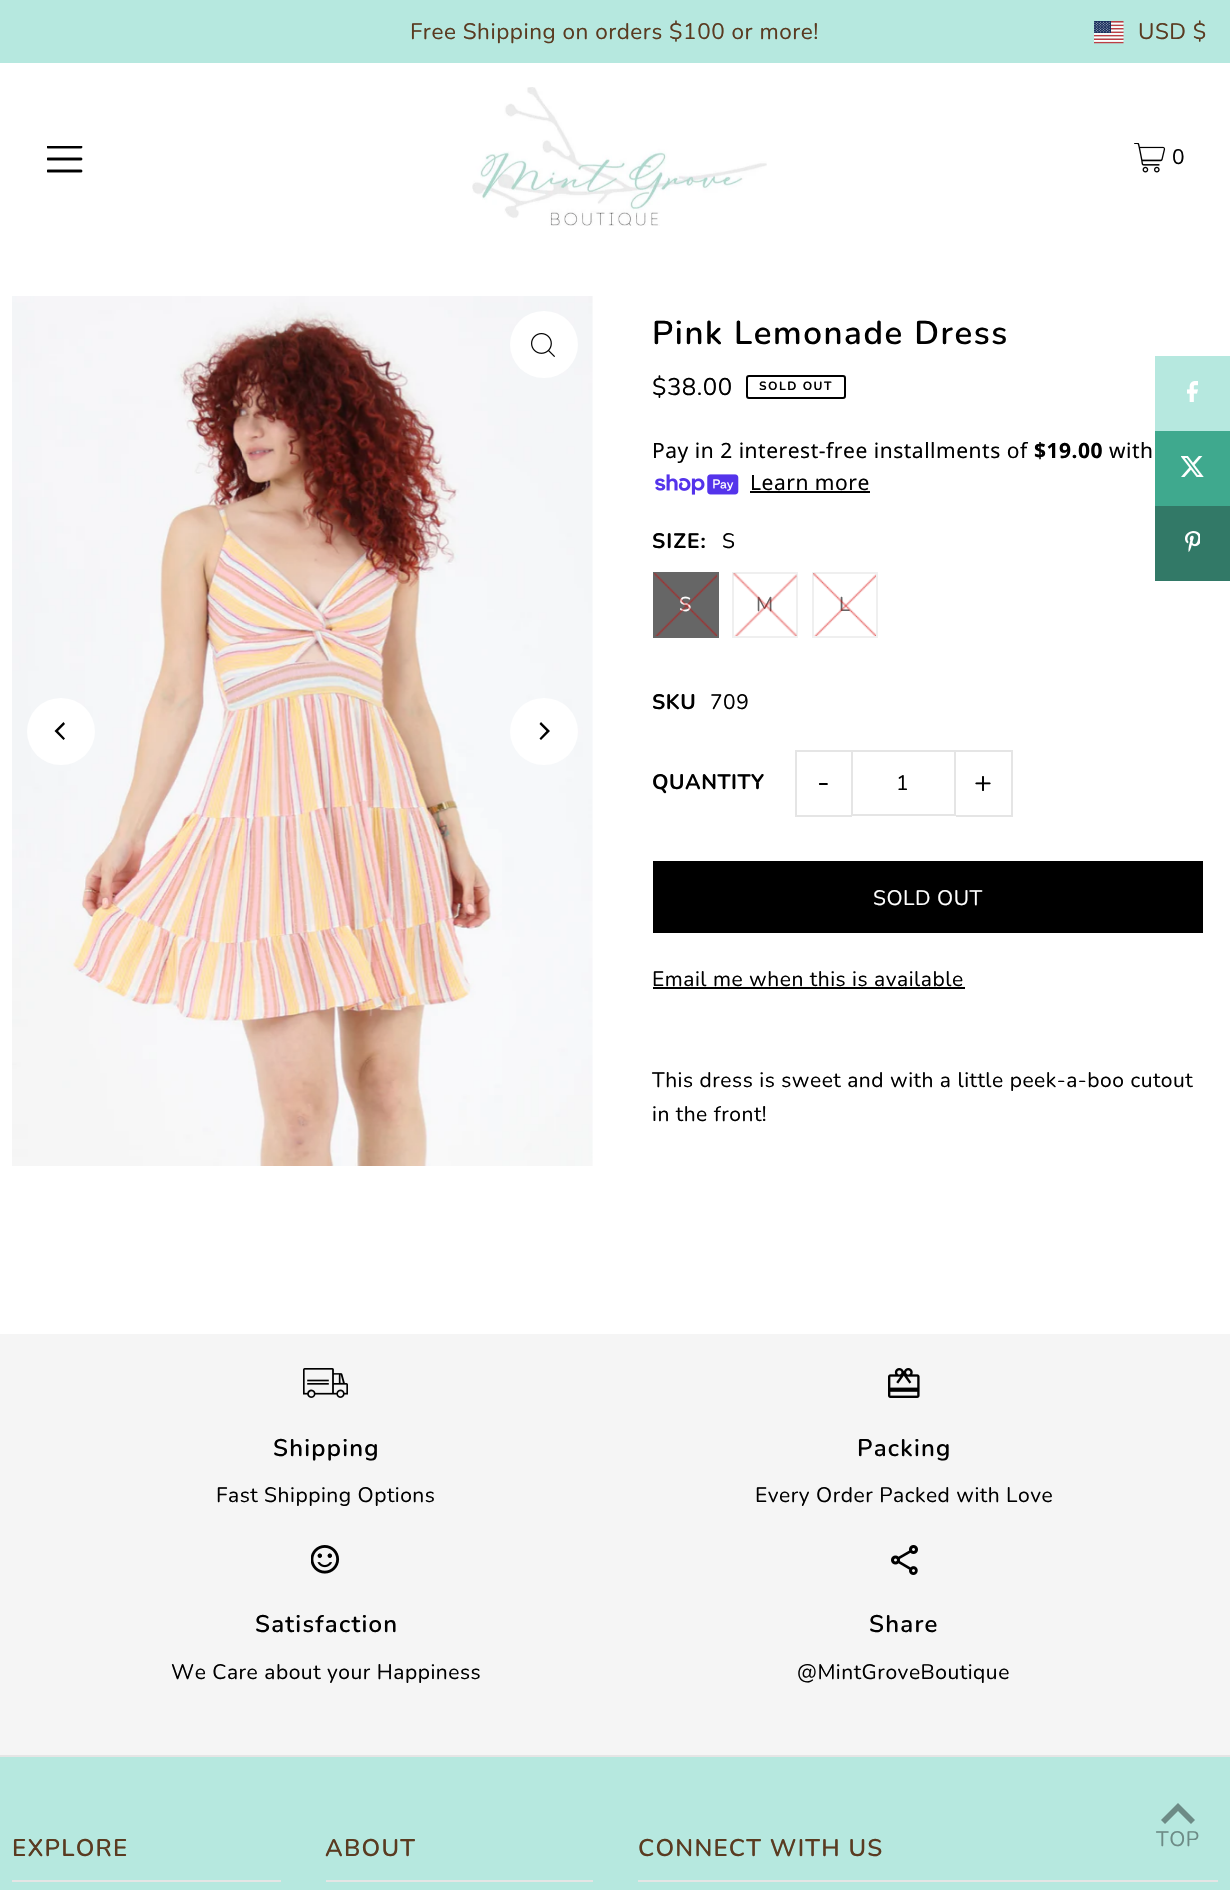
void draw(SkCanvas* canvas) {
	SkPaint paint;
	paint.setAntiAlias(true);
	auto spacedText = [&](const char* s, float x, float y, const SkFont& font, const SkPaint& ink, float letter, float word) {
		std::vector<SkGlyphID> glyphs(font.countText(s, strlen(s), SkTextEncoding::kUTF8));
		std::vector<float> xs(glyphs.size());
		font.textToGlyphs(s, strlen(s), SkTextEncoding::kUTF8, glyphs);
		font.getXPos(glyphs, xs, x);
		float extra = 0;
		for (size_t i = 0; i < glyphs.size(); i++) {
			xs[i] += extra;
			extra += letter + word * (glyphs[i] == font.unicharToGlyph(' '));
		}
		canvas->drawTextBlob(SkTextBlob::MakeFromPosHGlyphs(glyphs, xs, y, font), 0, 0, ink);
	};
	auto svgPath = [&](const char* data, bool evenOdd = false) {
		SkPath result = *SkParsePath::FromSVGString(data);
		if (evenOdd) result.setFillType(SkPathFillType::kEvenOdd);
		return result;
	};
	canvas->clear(0xffffffff);
	paint.setColor(0xffb6e8df);
	canvas->drawRect(SkRect::MakeXYWH(0, 0, 1230, 63), paint);
	SkFont f1(fontMgr->matchFamilyStyle("Nunito", SkFontStyle::Normal()), 22.5);
	f1.setSubpixel(true);
	paint.setColor(0xff5a3b21);
	spacedText("Free Shipping on orders $100 or more!", 410, 39, f1, paint, 0.52, 0);
	canvas->drawImageRect(SkImages::DeferredFromEncodedData(SkData::MakeFromFileName("img1.png")), SkRect::MakeXYWH(1094, 21, 30, 23), SkSamplingOptions());
	spacedText("USD $", 1138, 39, f1, paint, 0.5, 0);
	canvas->drawImageRect(SkImages::DeferredFromEncodedData(SkData::MakeFromFileName("img2.png")), SkRect::MakeXYWH(47, 146, 36, 27), SkSamplingOptions());
	canvas->drawImageRect(SkImages::DeferredFromEncodedData(SkData::MakeFromFileName("img3.png")), SkRect::MakeXYWH(472, 87, 295, 139), SkSamplingOptions());
	canvas->drawImageRect(SkImages::DeferredFromEncodedData(SkData::MakeFromFileName("img4.png")), SkRect::MakeXYWH(1134, 143, 32, 30), SkSamplingOptions());
	SkFont f2(fontMgr->matchFamilyStyle("Nunito", SkFontStyle::Normal()), 21);
	f2.setSubpixel(true);
	paint.setColor(0xff000000);
	spacedText("0", 1172, 164, f2, paint, 0.52, 0);
	canvas->drawImageRect(SkImages::DeferredFromEncodedData(SkData::MakeFromFileName("img5.png")), SkRect::MakeXYWH(12, 296, 581, 870), SkSamplingOptions());
	paint.setColor(0xffffffff);
	canvas->drawRoundRect(SkRect::MakeXYWH(510, 311, 68, 67), 33.5, 33.5, paint);
	canvas->drawImageRect(SkImages::DeferredFromEncodedData(SkData::MakeFromFileName("img6.png")), SkRect::MakeXYWH(531, 333, 24, 24), SkSamplingOptions());
	canvas->drawRoundRect(SkRect::MakeXYWH(27, 698, 68, 67), 33.5, 33.5, paint);
	paint.setColor(0xff000000);
	canvas->drawPath(svgPath("M54.5 731L63.5 740L65 738.5L58 731L65 724L63.5 722Z"), paint);
	paint.setColor(0xffffffff);
	canvas->drawRoundRect(SkRect::MakeXYWH(510, 698, 68, 67), 33.5, 33.5, paint);
	paint.setColor(0xff000000);
	canvas->drawPath(svgPath("M550 731L541 722L539.5 724L546.5 731L539.5 738.5L541 740Z"), paint);
	SkFont f3(fontMgr->matchFamilyStyle("Nunito", SkFontStyle(600, SkFontStyle::kNormal_Width, SkFontStyle::kUpright_Slant)), 33);
	f3.setSubpixel(true);
	spacedText("Pink Lemonade Dress", 652, 344, f3, paint, 1.6, 0);
	SkFont f4(fontMgr->matchFamilyStyle("Nunito", SkFontStyle::Normal()), 24);
	f4.setSubpixel(true);
	spacedText("$38.00", 652, 395, f4, paint, 0.52, 0);
	paint.setStroke(true);
	paint.setStrokeWidth(2);
	canvas->drawRoundRect(SkRect::MakeXYWH(747, 376, 98, 22), 2, 2, paint);
	SkFont f5(fontMgr->matchFamilyStyle("Nunito", SkFontStyle::Bold()), 12);
	f5.setSubpixel(true);
	paint.setStroke(false);
	spacedText("SOLD OUT", 759, 390, f5, paint, 1.5, 0);
	SkFont f6(fontMgr->matchFamilyStyle("Noto Sans", SkFontStyle::Normal()), 21);
	f6.setSubpixel(true);
	spacedText("Pay in 2 interest-free installments of", 652, 458, f6, paint, 0.52, 0);
	SkFont f7(fontMgr->matchFamilyStyle("Noto Sans", SkFontStyle::Bold()), 21);
	f7.setSubpixel(true);
	spacedText("$19.00", 1034, 458, f7, paint, 0.52, 0);
	spacedText("with", 1109, 458, f6, paint, 0.52, 0);
	canvas->drawImageRect(SkImages::DeferredFromEncodedData(SkData::MakeFromFileName("img7.png")), SkRect::MakeXYWH(655, 474, 84, 21), SkSamplingOptions());
	spacedText("Learn more", 750, 490, f6, paint, 0.52, 0);
	canvas->drawRect(SkRect::MakeXYWH(750, 491, 120, 2), paint);
	SkFont f8(fontMgr->matchFamilyStyle("Nunito", SkFontStyle::Bold()), 21);
	f8.setSubpixel(true);
	spacedText("SIZE:", 652, 548, f8, paint, 1, 0);
	spacedText("S", 722, 548, f2, paint, 1, 0);
	paint.setColor(0xff666666);
	canvas->drawRect(SkRect::MakeXYWH(653, 572, 66, 66), paint);
	SkFont f9(fontMgr->matchFamilyStyle("Nunito", SkFontStyle::Normal()), 20);
	f9.setSubpixel(true);
	paint.setColor(0xffffffff);
	spacedText("S", 679, 611, f9, paint, 0.52, 0);
	canvas->drawImageRect(SkImages::DeferredFromEncodedData(SkData::MakeFromFileName("img8.png")), SkRect::MakeXYWH(654, 573, 63, 63), SkSamplingOptions());
	paint.setStroke(true);
	paint.setColor(0xffefefef);
	canvas->drawRect(SkRect::MakeXYWH(733, 573, 64, 64), paint);
	paint.setStroke(false);
	paint.setColor(0xff666666);
	spacedText("M", 756, 611, f9, paint, 0.52, 0);
	canvas->drawImageRect(SkImages::DeferredFromEncodedData(SkData::MakeFromFileName("img9.png")), SkRect::MakeXYWH(733, 573, 64, 63), SkSamplingOptions());
	paint.setStroke(true);
	paint.setColor(0xffefefef);
	canvas->drawRect(SkRect::MakeXYWH(813, 573, 64, 64), paint);
	paint.setStroke(false);
	paint.setColor(0xff666666);
	spacedText("L", 839, 611, f9, paint, 0.52, 0);
	canvas->drawImageRect(SkImages::DeferredFromEncodedData(SkData::MakeFromFileName("img10.png")), SkRect::MakeXYWH(813, 573, 63, 63), SkSamplingOptions());
	paint.setColor(0xff000000);
	spacedText("SKU", 652, 709, f8, paint, 0.52, 0);
	spacedText("709", 710, 709, f2, paint, 0.52, 0);
	spacedText("QUANTITY", 652, 789, f8, paint, 0.52, 0);
	paint.setColor(0xffe5e5e5);
	canvas->drawRect(SkRect::MakeXYWH(795, 750, 57, 2), paint);
	canvas->drawRect(SkRect::MakeXYWH(795, 815, 57, 2), paint);
	canvas->drawRect(SkRect::MakeXYWH(795, 750, 2, 66), paint);
	SkFont f10(fontMgr->matchFamilyStyle("Nunito", SkFontStyle::Normal()), 30);
	f10.setSubpixel(true);
	paint.setColor(0xff000000);
	spacedText("-", 817, 792, f10, paint, 1, 0);
	paint.setStroke(true);
	paint.setColor(0xffe5e5e5);
	canvas->drawRect(SkRect::MakeXYWH(852, 751, 103, 64), paint);
	paint.setStroke(false);
	paint.setColor(0xff000000);
	spacedText("1", 896, 790, f2, paint, 0.52, 0);
	paint.setColor(0xffe5e5e5);
	canvas->drawRect(SkRect::MakeXYWH(956, 750, 57, 2), paint);
	canvas->drawRect(SkRect::MakeXYWH(1011, 750, 2, 66), paint);
	canvas->drawRect(SkRect::MakeXYWH(956, 815, 57, 2), paint);
	paint.setColor(0xff000000);
	spacedText("+", 974, 792, f10, paint, 1, 0);
	canvas->drawRect(SkRect::MakeXYWH(653, 861, 550, 72), paint);
	paint.setColor(0xffffffff);
	spacedText("SOLD OUT", 873, 905, f2, paint, 0.52, 0);
	paint.setColor(0xff000000);
	spacedText("Email me when this is available", 652, 986, f2, paint, 0.52, 0);
	canvas->drawRect(SkRect::MakeXYWH(653, 987, 312, 2), paint);
	spacedText("This dress is sweet and with a little peek-a-boo cutout", 652, 1087, f2, paint, 0.52, 0);
	spacedText("in the front!", 652, 1121, f2, paint, 0.52, 0);
	paint.setColor(0xffb6e8df);
	canvas->drawRect(SkRect::MakeXYWH(1155, 356, 75, 75), paint);
	canvas->drawImageRect(SkImages::DeferredFromEncodedData(SkData::MakeFromFileName("img11.png")), SkRect::MakeXYWH(1187, 381, 11, 21), SkSamplingOptions());
	paint.setColor(0xff3fa98e);
	canvas->drawRect(SkRect::MakeXYWH(1155, 431, 75, 75), paint);
	canvas->drawImageRect(SkImages::DeferredFromEncodedData(SkData::MakeFromFileName("img12.png")), SkRect::MakeXYWH(1181, 456, 23, 21), SkSamplingOptions());
	paint.setColor(0xff327967);
	canvas->drawRect(SkRect::MakeXYWH(1155, 506, 75, 75), paint);
	canvas->drawImageRect(SkImages::DeferredFromEncodedData(SkData::MakeFromFileName("img13.png")), SkRect::MakeXYWH(1185, 531, 15, 21), SkSamplingOptions());
	paint.setColor(0xfff5f5f5);
	canvas->drawRect(SkRect::MakeXYWH(0, 1334, 1230, 421), paint);
	canvas->drawImageRect(SkImages::DeferredFromEncodedData(SkData::MakeFromFileName("img14.png")), SkRect::MakeXYWH(303, 1368, 45, 30), SkSamplingOptions());
	SkFont f11(fontMgr->matchFamilyStyle("Nunito", SkFontStyle(600, SkFontStyle::kNormal_Width, SkFontStyle::kUpright_Slant)), 24);
	f11.setSubpixel(true);
	paint.setColor(0xff000000);
	spacedText("Shipping", 273, 1456, f11, paint, 1.25, 0);
	spacedText("Fast Shipping Options", 216, 1502, f2, paint, 0.52, 0);
	canvas->drawImageRect(SkImages::DeferredFromEncodedData(SkData::MakeFromFileName("img15.png")), SkRect::MakeXYWH(888, 1368, 32, 30), SkSamplingOptions());
	spacedText("Packing", 857, 1456, f11, paint, 1.25, 0);
	spacedText("Every Order Packed with Love", 755, 1502, f2, paint, 0.52, 0);
	canvas->drawImageRect(SkImages::DeferredFromEncodedData(SkData::MakeFromFileName("img16.png")), SkRect::MakeXYWH(311, 1545, 29, 29), SkSamplingOptions());
	spacedText("Satisfaction", 255, 1632, f11, paint, 1.25, 0);
	spacedText("We Care about your Happiness", 171, 1679, f2, paint, 0.52, 0);
	canvas->drawImageRect(SkImages::DeferredFromEncodedData(SkData::MakeFromFileName("img17.png")), SkRect::MakeXYWH(891, 1545, 27, 30), SkSamplingOptions());
	spacedText("Share", 869, 1632, f11, paint, 1.25, 0);
	spacedText("@MintGroveBoutique", 797, 1679, f2, paint, 0.52, 0);
	paint.setColor(0xffb6e8df);
	canvas->drawRect(SkRect::MakeXYWH(0, 1757, 1230, 133), paint);
	paint.setColor(0xffe5e5e5);
	canvas->drawRect(SkRect::MakeXYWH(0, 1755, 1230, 2), paint);
	canvas->drawRect(SkRect::MakeXYWH(12, 1880, 269, 2), paint);
	paint.setColor(0xff5a3b21);
	spacedText("EXPLORE", 12, 1856, f11, paint, 1.25, 0);
	paint.setColor(0xffe5e5e5);
	canvas->drawRect(SkRect::MakeXYWH(326, 1880, 267, 2), paint);
	paint.setColor(0xff5a3b21);
	spacedText("ABOUT", 325, 1856, f11, paint, 1.25, 0);
	paint.setColor(0xffe5e5e5);
	canvas->drawRect(SkRect::MakeXYWH(638, 1880, 580, 2), paint);
	paint.setColor(0xff5a3b21);
	spacedText("CONNECT WITH US", 638, 1856, f11, paint, 1.25, 0);
	paint.setColor(0xff6d8b86);
	canvas->drawPath(svgPath("M1178 1803L1161 1820L1165 1824L1178 1811L1191 1824L1195 1820Z"), paint);
	spacedText("TOP", 1156, 1846, f2, paint, 0.52, 0);
}
